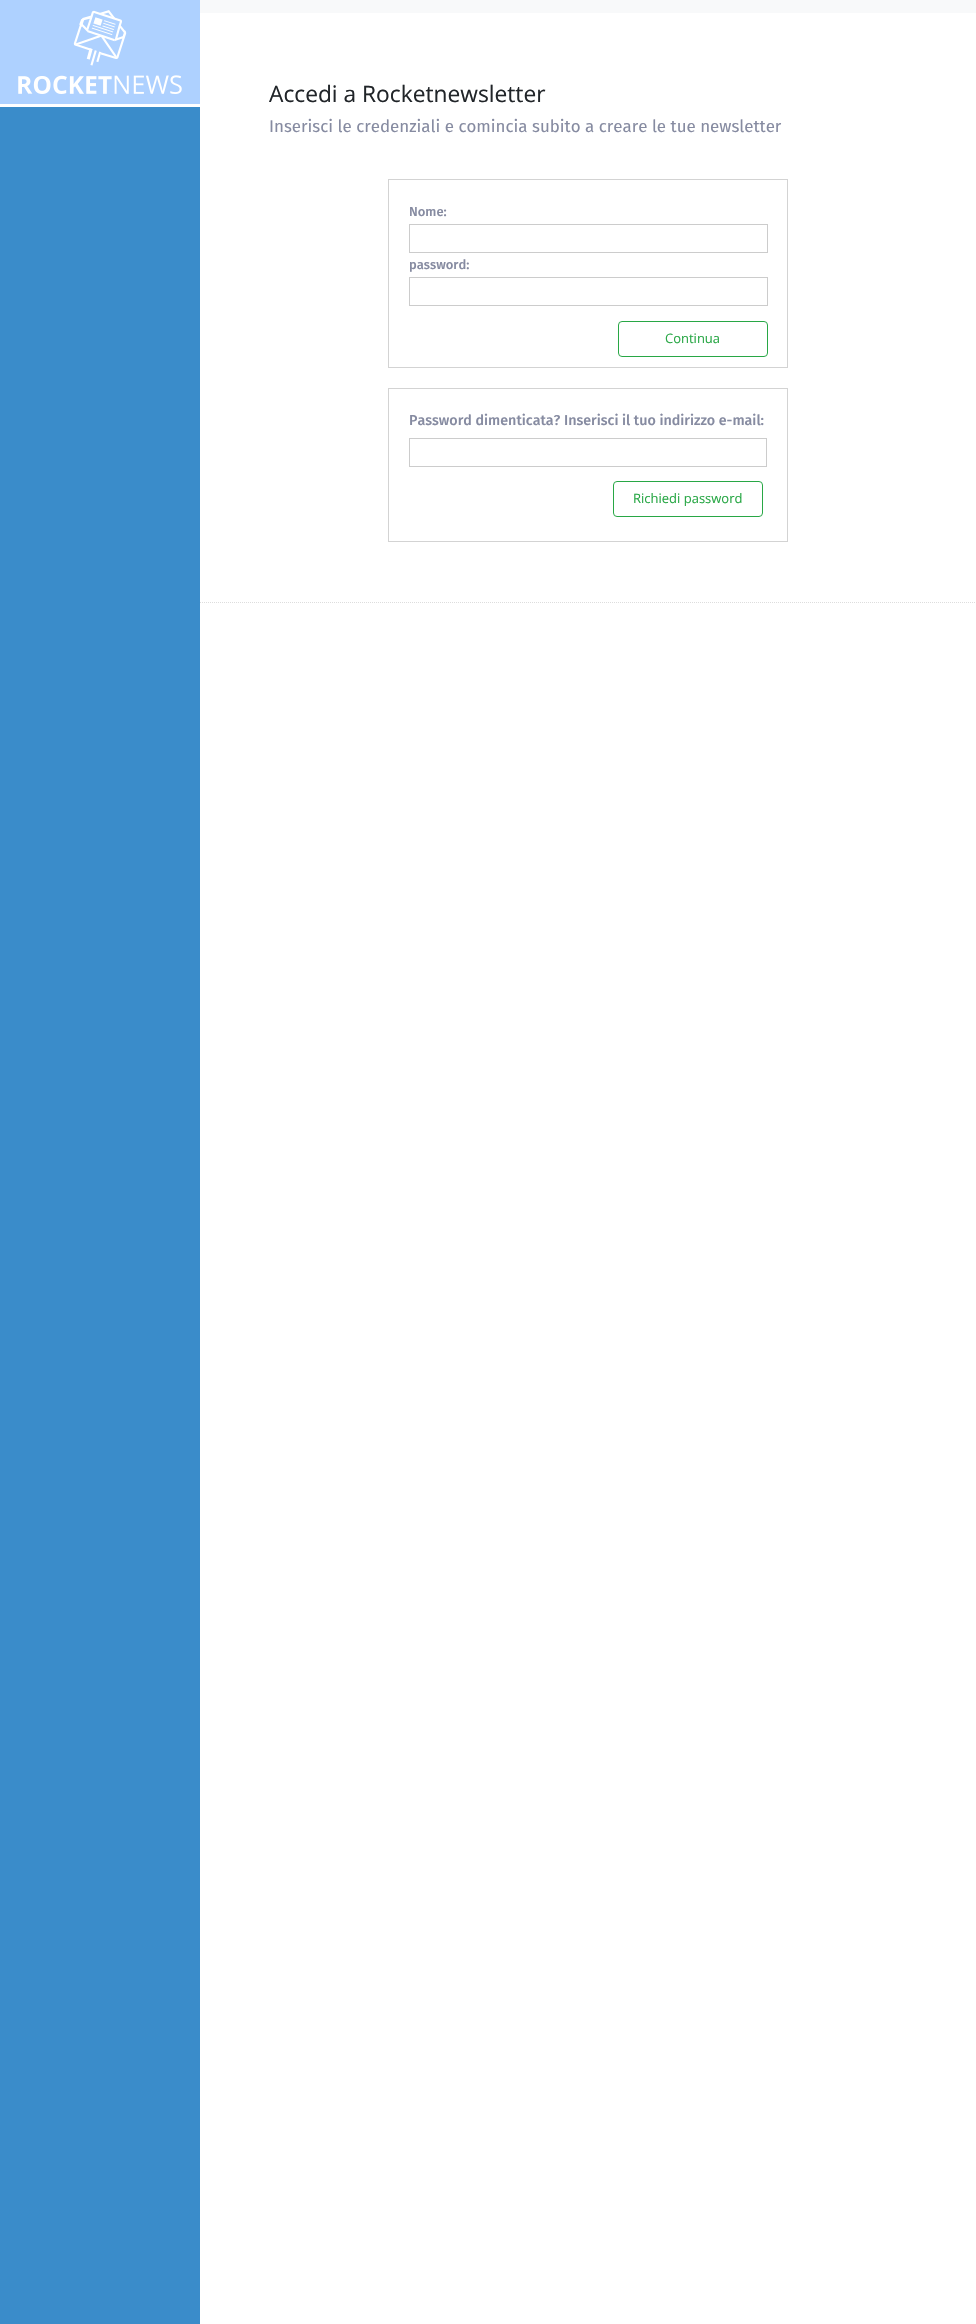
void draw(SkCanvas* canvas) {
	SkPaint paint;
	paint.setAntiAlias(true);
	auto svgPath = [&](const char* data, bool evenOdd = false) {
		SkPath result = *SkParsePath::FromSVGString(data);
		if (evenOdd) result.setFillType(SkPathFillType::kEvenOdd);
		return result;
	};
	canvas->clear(0xffffffff);
	paint.setColor(0xff3a8cca);
	canvas->drawRect(SkRect::MakeXYWH(0, 107, 200, 2217), paint);
	paint.setColor(0xffaed1ff);
	canvas->drawRect(SkRect::MakeXYWH(0, 0, 200, 104), paint);
	canvas->drawImageRect(SkImages::DeferredFromEncodedData(SkData::MakeFromFileName("img1.png")), SkRect::MakeXYWH(18, 10, 164, 84), SkSamplingOptions());
	paint.setColor(0xfff8f9fa);
	canvas->drawRect(SkRect::MakeXYWH(200, 0, 776, 13), paint);
	SkFont f1(fontMgr->matchFamilyStyle("Open Sans", SkFontStyle::Normal()), 22.75);
	f1.setSubpixel(true);
	paint.setColor(0xff212529);
	canvas->drawString("Accedi a Rocketnewsletter", 269, 102, f1, paint);
	SkFont f2(fontMgr->matchFamilyStyle("Fira Sans", SkFontStyle::Normal()), 16.9);
	f2.setSubpixel(true);
	paint.setColor(0xff868ba1);
	canvas->drawString("Inserisci le credenziali e comincia subito a creare le tue newsletter", 269, 132, f2, paint);
	paint.setStroke(true);
	paint.setStrokeWidth(1);
	paint.setColor(0xffd3d3d3);
	canvas->drawRect(SkRect::MakeXYWH(388.5, 179.5, 399, 188), paint);
	SkFont f3(fontMgr->matchFamilyStyle("Fira Sans", SkFontStyle(500, SkFontStyle::kNormal_Width, SkFontStyle::kUpright_Slant)), 13);
	f3.setSubpixel(true);
	paint.setStroke(false);
	paint.setColor(0xff868ba1);
	canvas->drawString("Nome:", 409, 216, f3, paint);
	paint.setStroke(true);
	paint.setColor(0xffcccccc);
	canvas->drawRect(SkRect::MakeXYWH(409.5, 224.5, 358, 28), paint);
	paint.setStroke(false);
	paint.setColor(0xff868ba1);
	canvas->drawString("password:", 409, 269, f3, paint);
	paint.setStroke(true);
	paint.setColor(0xffcccccc);
	canvas->drawRect(SkRect::MakeXYWH(409.5, 277.5, 358, 28), paint);
	paint.setColor(0xff28a745);
	canvas->drawRoundRect(SkRect::MakeXYWH(618.5, 321.5, 149, 35), 3.5, 3.5, paint);
	SkFont f4(fontMgr->matchFamilyStyle("Open Sans", SkFontStyle::Normal()), 13);
	f4.setSubpixel(true);
	paint.setStroke(false);
	canvas->drawString("Continua", 665, 343, f4, paint);
	paint.setStroke(true);
	paint.setColor(0xffd3d3d3);
	canvas->drawRect(SkRect::MakeXYWH(388.5, 388.5, 399, 153), paint);
	SkFont f5(fontMgr->matchFamilyStyle("Fira Sans", SkFontStyle(500, SkFontStyle::kNormal_Width, SkFontStyle::kUpright_Slant)), 14.3);
	f5.setSubpixel(true);
	paint.setStroke(false);
	paint.setColor(0xff868ba1);
	canvas->drawString("Password dimenticata? Inserisci il tuo indirizzo e-mail:", 409, 425, f5, paint);
	paint.setStroke(true);
	paint.setColor(0xffcccccc);
	canvas->drawRect(SkRect::MakeXYWH(409.5, 438.5, 357, 28), paint);
	paint.setColor(0xff28a745);
	canvas->drawRoundRect(SkRect::MakeXYWH(613.5, 481.5, 149, 35), 3.5, 3.5, paint);
	paint.setStroke(false);
	canvas->drawString("Richiedi password", 633, 503, f4, paint);
	paint.setStroke(true);
	paint.setColor(0xffdddddd);
	paint.setPathEffect(SkDashPathEffect::Make({{1, 1}}, 0));
	canvas->drawPath(svgPath("M200 602.5H976"), paint);
	paint.setPathEffect(nullptr);
}
